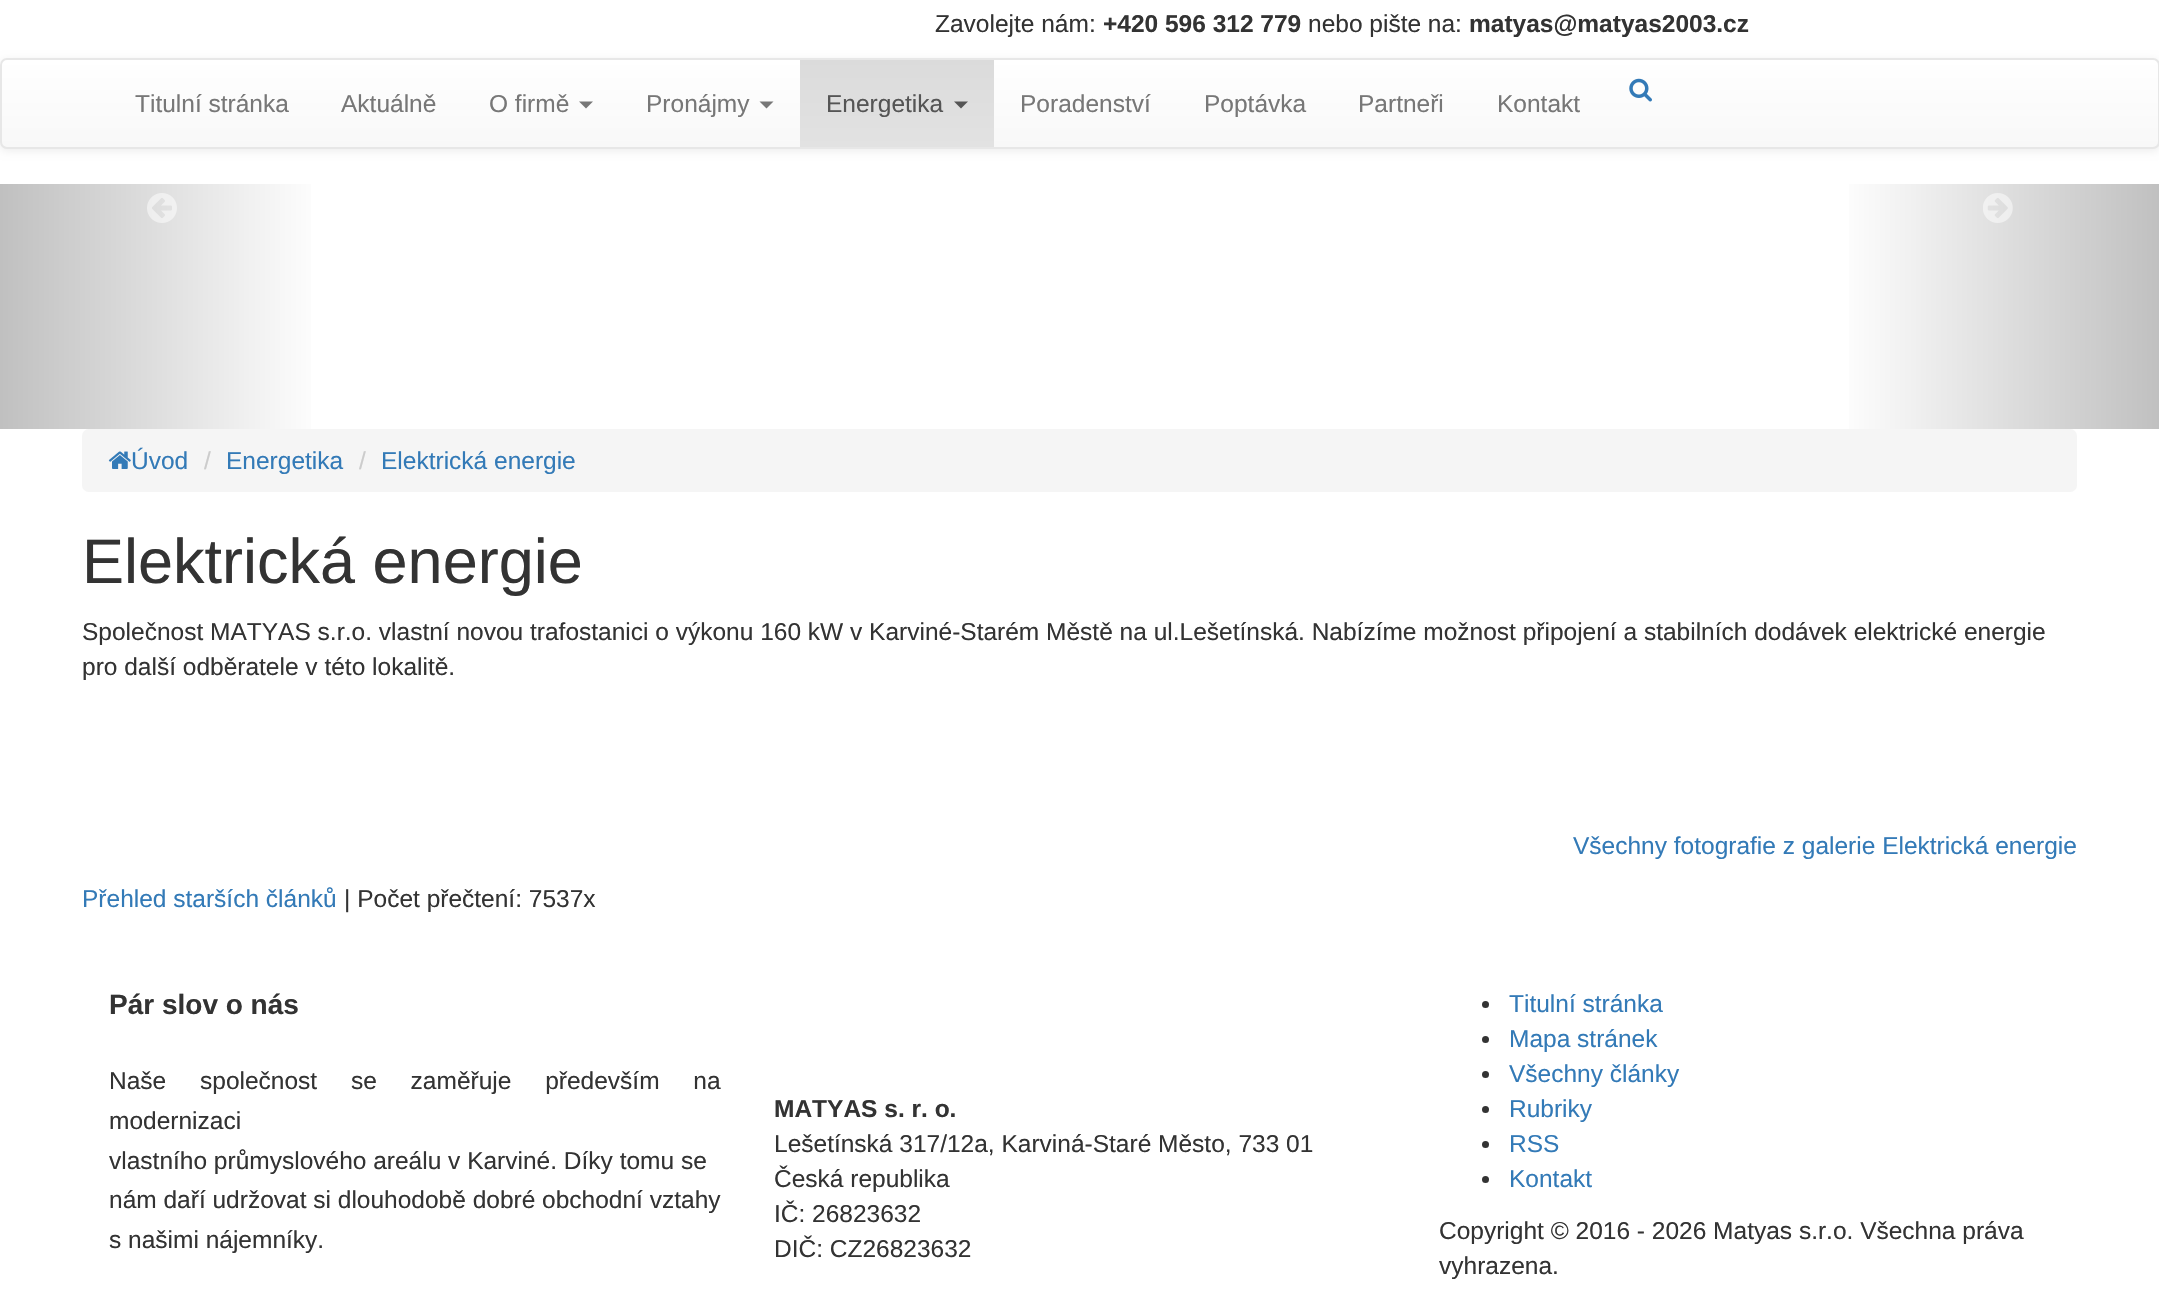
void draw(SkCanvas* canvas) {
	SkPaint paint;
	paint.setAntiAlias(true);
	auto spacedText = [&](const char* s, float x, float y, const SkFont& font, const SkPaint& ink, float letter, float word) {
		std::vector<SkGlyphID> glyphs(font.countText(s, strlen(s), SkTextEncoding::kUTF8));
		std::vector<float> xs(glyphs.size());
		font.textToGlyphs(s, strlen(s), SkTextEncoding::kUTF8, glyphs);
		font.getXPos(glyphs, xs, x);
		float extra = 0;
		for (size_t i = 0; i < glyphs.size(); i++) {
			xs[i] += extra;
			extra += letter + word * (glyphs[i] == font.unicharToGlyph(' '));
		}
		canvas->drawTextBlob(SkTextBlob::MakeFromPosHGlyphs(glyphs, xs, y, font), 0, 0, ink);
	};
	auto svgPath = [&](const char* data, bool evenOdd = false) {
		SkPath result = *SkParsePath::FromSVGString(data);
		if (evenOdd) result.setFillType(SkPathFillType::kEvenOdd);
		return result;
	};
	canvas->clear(0xffffffff);
	SkFont f1(fontMgr->matchFamilyStyle("Liberation Sans", SkFontStyle::Normal()), 24.5);
	f1.setSubpixel(true);
	paint.setColor(0xff333333);
	canvas->drawString("Zavolejte nám:", 935, 32, f1, paint);
	SkFont f2(fontMgr->matchFamilyStyle("Liberation Sans", SkFontStyle::Bold()), 24.5);
	f2.setSubpixel(true);
	canvas->drawString("+420 596 312 779", 1103, 32, f2, paint);
	canvas->drawString("nebo pište na:", 1308, 32, f1, paint);
	canvas->drawString("matyas@matyas2003.cz", 1469, 32, f2, paint);
	paint.setColor(0x12000000);
	paint.setMaskFilter(SkMaskFilter::MakeBlur(kNormal_SkBlurStyle, 4.5));
	canvas->drawRoundRect(SkRect::MakeXYWH(0, 60, 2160, 91), 7, 7, paint);
	paint.setMaskFilter(nullptr);
	canvas->save();
	canvas->clipPath(svgPath("M7 58H2153C2157 58 2160 61 2160 65V142C2160 146 2157 149 2153 149H7C3 149 0 146 0 142V65C0 61 3 58 7 58Z"), true);
	{
		const SkColor colors[] = {0xffffffff, 0xfff8f8f8};
		const float stops[] = {0, 1};
		const SkPoint ends[] = {{1080, 59}, {1080, 147}};
		paint.setShader(SkGradientShader::MakeLinear(ends, colors, stops, 2, SkTileMode::kClamp));
		paint.setAlpha(255);
	}
	canvas->drawRect(SkRect::MakeXYWH(0, 60, 2159, 87), paint);
	canvas->restore();
	paint.setStroke(true);
	paint.setStrokeWidth(2);
	paint.setShader(nullptr);
	paint.setColor(0xffe7e7e7);
	canvas->drawRoundRect(SkRect::MakeXYWH(1, 59, 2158, 89), 6, 6, paint);
	canvas->drawImageRect(SkImages::DeferredFromEncodedData(SkData::MakeFromFileName("img1.png")), SkRect::MakeXYWH(1629, 78, 23, 24), SkSamplingOptions());
	paint.setStroke(false);
	paint.setColor(0xff777777);
	canvas->drawString("Titulní stránka", 135, 112, f1, paint);
	canvas->drawString("Aktuálně", 341, 112, f1, paint);
	canvas->drawString("O firmě", 489, 112, f1, paint);
	canvas->drawPath(svgPath("M579 101.5H593L586 108.5Z"), paint);
	canvas->drawString("Pronájmy", 646, 112, f1, paint);
	canvas->drawPath(svgPath("M759.5 101.5H773.5L766.5 108.5Z"), paint);
	{
		const SkColor colors[] = {0xffdbdbdb, 0xffe2e2e2};
		const float stops[] = {0, 1};
		const SkPoint ends[] = {{897, 59}, {897, 147}};
		paint.setShader(SkGradientShader::MakeLinear(ends, colors, stops, 2, SkTileMode::kClamp));
		paint.setAlpha(255);
	}
	canvas->drawRect(SkRect::MakeXYWH(800, 60, 194, 87), paint);
	paint.setShader(nullptr);
	paint.setColor(0xff555555);
	canvas->drawString("Energetika", 826, 112, f1, paint);
	canvas->drawPath(svgPath("M954 101.5H968L961 108.5Z"), paint);
	paint.setColor(0xff777777);
	canvas->drawString("Poradenství", 1020, 112, f1, paint);
	canvas->drawString("Poptávka", 1204, 112, f1, paint);
	canvas->drawString("Partneři", 1358, 112, f1, paint);
	canvas->drawString("Kontakt", 1497, 112, f1, paint);
	{
		const SkColor colors[] = {0xffc0c0c0, 0xffffffff};
		const float stops[] = {0, 1};
		const SkPoint ends[] = {{0, 306}, {324, 306}};
		paint.setShader(SkGradientShader::MakeLinear(ends, colors, stops, 2, SkTileMode::kClamp));
		paint.setAlpha(255);
	}
	canvas->drawRect(SkRect::MakeXYWH(0, 184, 311, 245), paint);
	canvas->drawImageRect(SkImages::DeferredFromEncodedData(SkData::MakeFromFileName("img2.png")), SkRect::MakeXYWH(147, 193, 30, 30), SkSamplingOptions());
	{
		const SkColor colors[] = {0xffffffff, 0xffc0c0c0};
		const float stops[] = {0, 1};
		const SkPoint ends[] = {{1836, 306}, {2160, 306}};
		paint.setShader(SkGradientShader::MakeLinear(ends, colors, stops, 2, SkTileMode::kClamp));
		paint.setAlpha(255);
	}
	canvas->drawRect(SkRect::MakeXYWH(1849, 184, 310, 245), paint);
	canvas->drawImageRect(SkImages::DeferredFromEncodedData(SkData::MakeFromFileName("img3.png")), SkRect::MakeXYWH(1983, 193, 30, 30), SkSamplingOptions());
	paint.setShader(nullptr);
	paint.setColor(0xfff5f5f5);
	canvas->drawRoundRect(SkRect::MakeXYWH(82, 429, 1995, 63), 7, 7, paint);
	canvas->drawImageRect(SkImages::DeferredFromEncodedData(SkData::MakeFromFileName("img4.png")), SkRect::MakeXYWH(108, 451, 23, 18), SkSamplingOptions());
	paint.setColor(0xff337ab7);
	canvas->drawString("Úvod", 131, 469, f1, paint);
	paint.setColor(0xffcccccc);
	canvas->drawString("/", 204, 469, f1, paint);
	paint.setColor(0xff337ab7);
	canvas->drawString("Energetika", 226, 469, f1, paint);
	paint.setColor(0xffcccccc);
	canvas->drawString("/", 359, 469, f1, paint);
	paint.setColor(0xff337ab7);
	canvas->drawString("Elektrická energie", 381, 469, f1, paint);
	SkFont f3(fontMgr->matchFamilyStyle("Liberation Sans", SkFontStyle::Normal()), 63);
	f3.setSubpixel(true);
	paint.setColor(0xff333333);
	canvas->drawString("Elektrická energie", 82, 583, f3, paint);
	canvas->drawString("Společnost MATYAS s.r.o. vlastní novou trafostanici o výkonu 160 kW v Karviné-Starém Městě na ul.Lešetínská. Nabízíme možnost připojení a stabilních dodávek elektrické energie", 82, 640, f1, paint);
	canvas->drawString("pro další odběratele v této lokalitě.", 82, 675, f1, paint);
	paint.setColor(0xff337ab7);
	canvas->drawString("Všechny fotografie z galerie Elektrická energie", 1573, 854, f1, paint);
	canvas->drawString("Přehled starších článků", 82, 907, f1, paint);
	paint.setColor(0xff333333);
	canvas->drawString("| Počet přečtení: 7537x", 344, 907, f1, paint);
	SkFont f4(fontMgr->matchFamilyStyle("Liberation Sans", SkFontStyle::Bold()), 28);
	f4.setSubpixel(true);
	canvas->drawString("Pár slov o nás", 109, 1014, f4, paint);
	spacedText("Naše společnost se zaměřuje především na", 109, 1089, f1, paint, 0, 27);
	canvas->drawString("modernizaci", 109, 1129, f1, paint);
	canvas->drawString("vlastního průmyslového areálu v Karviné. Díky tomu se", 109, 1169, f1, paint);
	canvas->drawString("nám daří udržovat si dlouhodobě dobré obchodní vztahy", 109, 1208, f1, paint);
	canvas->drawString("s našimi nájemníky.", 109, 1248, f1, paint);
	canvas->drawString("MATYAS s. r. o.", 774, 1117, f2, paint);
	canvas->drawString("Lešetínská 317/12a, Karviná-Staré Město, 733 01", 774, 1152, f1, paint);
	canvas->drawString("Česká republika", 774, 1187, f1, paint);
	canvas->drawString("IČ: 26823632", 774, 1222, f1, paint);
	canvas->drawString("DIČ: CZ26823632", 774, 1257, f1, paint);
	canvas->drawCircle(1485.5, 1004.5, 3.5, paint);
	paint.setColor(0xff337ab7);
	canvas->drawString("Titulní stránka", 1509, 1012, f1, paint);
	paint.setColor(0xff333333);
	canvas->drawCircle(1485.5, 1039.5, 3.5, paint);
	paint.setColor(0xff337ab7);
	canvas->drawString("Mapa stránek", 1509, 1047, f1, paint);
	paint.setColor(0xff333333);
	canvas->drawCircle(1485.5, 1074.5, 3.5, paint);
	paint.setColor(0xff337ab7);
	canvas->drawString("Všechny články", 1509, 1082, f1, paint);
	paint.setColor(0xff333333);
	canvas->drawCircle(1485.5, 1109.5, 3.5, paint);
	paint.setColor(0xff337ab7);
	canvas->drawString("Rubriky", 1509, 1117, f1, paint);
	paint.setColor(0xff333333);
	canvas->drawCircle(1485.5, 1144.5, 3.5, paint);
	paint.setColor(0xff337ab7);
	canvas->drawString("RSS", 1509, 1152, f1, paint);
	paint.setColor(0xff333333);
	canvas->drawCircle(1485.5, 1179.5, 3.5, paint);
	paint.setColor(0xff337ab7);
	canvas->drawString("Kontakt", 1509, 1187, f1, paint);
	paint.setColor(0xff333333);
	canvas->drawString("Copyright © 2016 - 2026 Matyas s.r.o. Všechna práva", 1439, 1239, f1, paint);
	canvas->drawString("vyhrazena.", 1439, 1274, f1, paint);
}
